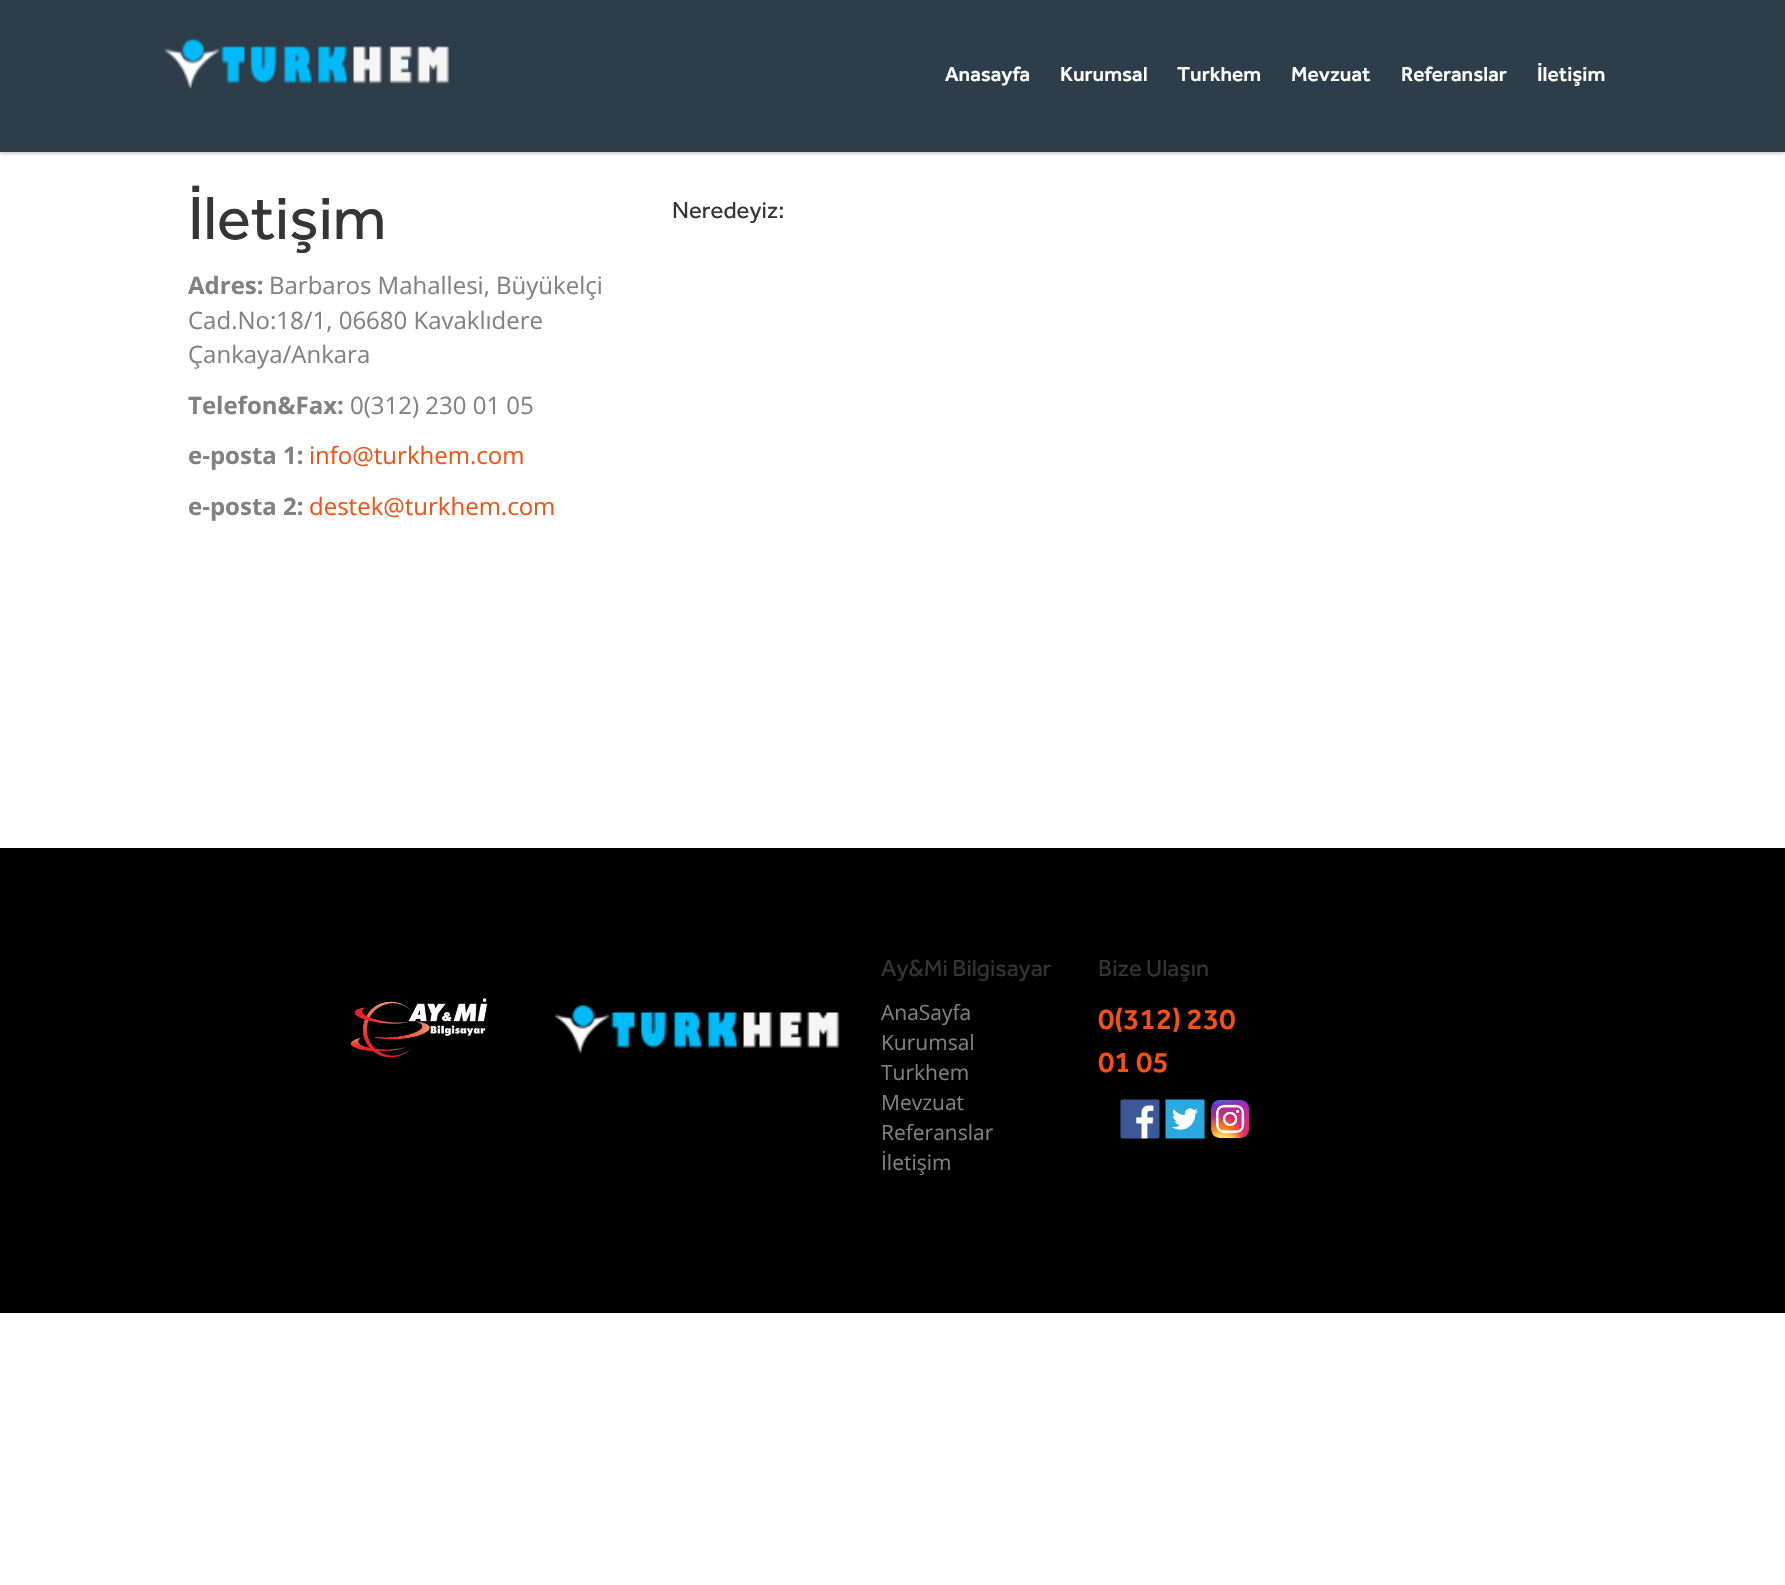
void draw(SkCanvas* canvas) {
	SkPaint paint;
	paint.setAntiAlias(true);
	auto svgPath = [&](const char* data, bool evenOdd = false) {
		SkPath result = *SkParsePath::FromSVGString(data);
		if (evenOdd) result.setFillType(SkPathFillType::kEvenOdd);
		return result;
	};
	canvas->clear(0xffffffff);
	canvas->save();
	canvas->clipPath(svgPath("M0 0H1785V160H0ZM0 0H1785V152H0Z", true), true);
	paint.setColor(0x59323232);
	paint.setMaskFilter(SkMaskFilter::MakeBlur(kNormal_SkBlurStyle, 2));
	canvas->drawRect(SkRect::MakeXYWH(0, 2, 1785, 151), paint);
	paint.setMaskFilter(nullptr);
	canvas->restore();
	paint.setColor(0xe6162836);
	canvas->drawRect(SkRect::MakeXYWH(0, 0, 1785, 152), paint);
	canvas->drawImageRect(SkImages::DeferredFromEncodedData(SkData::MakeFromFileName("img1.png")), SkRect::MakeXYWH(165, 38, 285, 51), SkSamplingOptions());
	SkFont f1(fontMgr->matchFamilyStyle("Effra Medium", SkFontStyle(500, SkFontStyle::kNormal_Width, SkFontStyle::kUpright_Slant)), 21);
	f1.setSubpixel(true);
	paint.setColor(0xffffffff);
	canvas->drawString("Anasayfa", 945, 81, f1, paint);
	canvas->drawString("Kurumsal", 1060, 81, f1, paint);
	canvas->drawString("Turkhem", 1177, 81, f1, paint);
	canvas->drawString("Mevzuat", 1291, 81, f1, paint);
	canvas->drawString("Referanslar", 1401, 81, f1, paint);
	canvas->drawString("İletişim", 1537, 81, f1, paint);
	SkFont f2(fontMgr->matchFamilyStyle("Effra", SkFontStyle::Normal()), 63);
	f2.setSubpixel(true);
	paint.setColor(0xff353535);
	canvas->drawString("İletişim", 188, 239, f2, paint);
	SkFont f3(fontMgr->matchFamilyStyle("Effra", SkFontStyle::Normal()), 24);
	f3.setSubpixel(true);
	canvas->drawString("Neredeyiz:", 672, 218, f3, paint);
	SkFont f4(fontMgr->matchFamilyStyle("Open Sans", SkFontStyle::Bold()), 24);
	f4.setSubpixel(true);
	paint.setColor(0xff818181);
	canvas->drawString("Adres:", 188, 294, f4, paint);
	SkFont f5(fontMgr->matchFamilyStyle("Open Sans", SkFontStyle::Normal()), 24);
	f5.setSubpixel(true);
	canvas->drawString("Barbaros Mahallesi, Büyükelçi", 269, 294, f5, paint);
	canvas->drawString("Cad.No:18/1, 06680 Kavaklıdere", 188, 329, f5, paint);
	canvas->drawString("Çankaya/Ankara", 188, 363, f5, paint);
	canvas->drawString("Telefon&Fax:", 188, 414, f4, paint);
	canvas->drawString("0(312) 230 01 05", 350, 414, f5, paint);
	canvas->drawString("e-posta 1:", 188, 464, f4, paint);
	paint.setColor(0xfff75012);
	canvas->drawString("info@turkhem.com", 309, 464, f5, paint);
	paint.setColor(0xff818181);
	canvas->drawString("e-posta 2:", 188, 515, f4, paint);
	paint.setColor(0xfff75012);
	canvas->drawString("destek@turkhem.com", 309, 515, f5, paint);
	paint.setColor(0xff000000);
	canvas->drawRect(SkRect::MakeXYWH(0, 848, 1785, 465), paint);
	canvas->drawImageRect(SkImages::DeferredFromEncodedData(SkData::MakeFromFileName("img2.png")), SkRect::MakeXYWH(350, 998, 138, 60), SkSamplingOptions());
	canvas->drawImageRect(SkImages::DeferredFromEncodedData(SkData::MakeFromFileName("img3.png")), SkRect::MakeXYWH(555, 1005, 285, 49), SkSamplingOptions());
	paint.setColor(0xff353535);
	canvas->drawString("Ay&Mi Bilgisayar", 881, 976, f3, paint);
	SkFont f6(fontMgr->matchFamilyStyle("Open Sans", SkFontStyle::Normal()), 21);
	f6.setSubpixel(true);
	paint.setColor(0xff818181);
	canvas->drawString("AnaSayfa", 881, 1020, f6, paint);
	canvas->drawString("Kurumsal", 881, 1050, f6, paint);
	canvas->drawString("Turkhem", 881, 1080, f6, paint);
	canvas->drawString("Mevzuat", 881, 1110, f6, paint);
	canvas->drawString("Referanslar", 881, 1140, f6, paint);
	canvas->drawString("İletişim", 881, 1170, f6, paint);
	paint.setColor(0xff353535);
	canvas->drawString("Bize Ulaşın", 1098, 976, f3, paint);
	SkFont f7(fontMgr->matchFamilyStyle("Effra Medium", SkFontStyle(500, SkFontStyle::kNormal_Width, SkFontStyle::kUpright_Slant)), 30);
	f7.setSubpixel(true);
	paint.setColor(0xfff75012);
	canvas->drawString("0(312) 230", 1098, 1029, f7, paint);
	canvas->drawString("01 05", 1098, 1072, f7, paint);
	canvas->drawImageRect(SkImages::DeferredFromEncodedData(SkData::MakeFromFileName("img4.png")), SkRect::MakeXYWH(1120, 1099, 40, 40), SkSamplingOptions());
	canvas->drawImageRect(SkImages::DeferredFromEncodedData(SkData::MakeFromFileName("img5.png")), SkRect::MakeXYWH(1165, 1099, 40, 40), SkSamplingOptions());
	canvas->drawImageRect(SkImages::DeferredFromEncodedData(SkData::MakeFromFileName("img6.png")), SkRect::MakeXYWH(1211, 1099, 39, 39), SkSamplingOptions());
}
